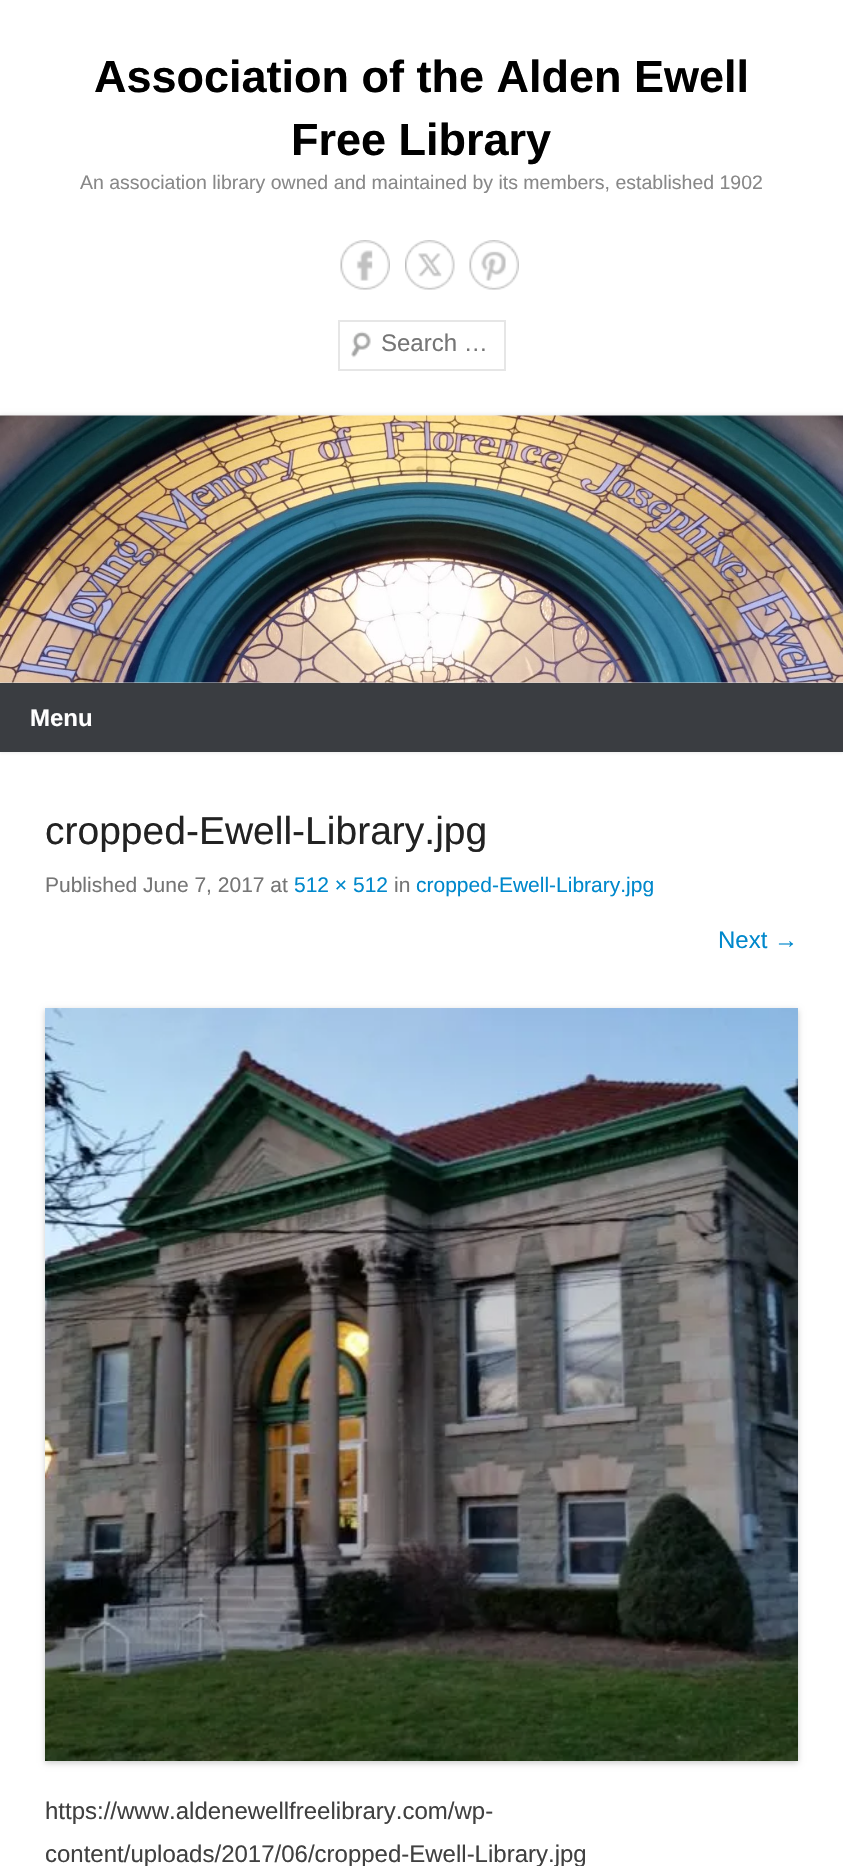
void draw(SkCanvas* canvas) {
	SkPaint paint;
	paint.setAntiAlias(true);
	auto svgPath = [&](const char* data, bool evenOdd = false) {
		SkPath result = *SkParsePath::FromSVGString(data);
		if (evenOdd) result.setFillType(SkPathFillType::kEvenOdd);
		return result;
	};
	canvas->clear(0xffffffff);
	SkFont f1(fontMgr->matchFamilyStyle("Liberation Sans", SkFontStyle::Bold()), 45);
	f1.setSubpixel(true);
	paint.setColor(0xff000000);
	canvas->drawString("Association of the Alden Ewell", 94, 92, f1, paint);
	canvas->drawString("Free Library", 291, 155, f1, paint);
	SkFont f2(fontMgr->matchFamilyStyle("Liberation Sans", SkFontStyle::Normal()), 19.5);
	f2.setSubpixel(true);
	paint.setColor(0xff888888);
	canvas->drawString("An association library owned and maintained by its members, established 1902", 80, 189, f2, paint);
	canvas->drawImageRect(SkImages::DeferredFromEncodedData(SkData::MakeFromFileName("img1.png")), SkRect::MakeXYWH(340, 240, 50, 50), SkSamplingOptions());
	canvas->drawImageRect(SkImages::DeferredFromEncodedData(SkData::MakeFromFileName("img2.png")), SkRect::MakeXYWH(405, 240, 50, 50), SkSamplingOptions());
	canvas->drawImageRect(SkImages::DeferredFromEncodedData(SkData::MakeFromFileName("img3.png")), SkRect::MakeXYWH(469, 240, 50, 50), SkSamplingOptions());
	canvas->drawImageRect(SkImages::DeferredFromEncodedData(SkData::MakeFromFileName("img4.png")), SkRect::MakeXYWH(351, 331, 20, 27), SkSamplingOptions());
	paint.setStroke(true);
	paint.setStrokeWidth(2);
	paint.setColor(0xffe6e6e6);
	canvas->drawRect(SkRect::MakeXYWH(339, 321, 166, 49), paint);
	SkFont f3(fontMgr->matchFamilyStyle("Liberation Sans", SkFontStyle::Normal()), 24);
	f3.setSubpixel(true);
	paint.setStroke(false);
	paint.setColor(0xff757575);
	canvas->drawString("Search …", 381, 351, f3, paint);
	paint.setColor(0x33000000);
	paint.setMaskFilter(SkMaskFilter::MakeBlur(kNormal_SkBlurStyle, 3));
	canvas->drawRect(SkRect::MakeXYWH(0, 417, 843, 267), paint);
	paint.setMaskFilter(nullptr);
	canvas->drawImageRect(SkImages::DeferredFromEncodedData(SkData::MakeFromFileName("img5.png")), SkRect::MakeXYWH(0, 415, 843, 268), SkSamplingOptions());
	paint.setColor(0xff3a3d41);
	canvas->drawRect(SkRect::MakeXYWH(0, 683, 843, 69), paint);
	canvas->save();
	canvas->clipPath(svgPath("M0 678H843V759H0ZM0 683H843V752H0Z", true), true);
	paint.setColor(0x1a404040);
	paint.setMaskFilter(SkMaskFilter::MakeBlur(kNormal_SkBlurStyle, 1.5));
	canvas->drawRect(SkRect::MakeXYWH(0, 684, 843, 69), paint);
	paint.setMaskFilter(nullptr);
	canvas->restore();
	SkFont f4(fontMgr->matchFamilyStyle("Liberation Sans", SkFontStyle::Bold()), 24);
	f4.setSubpixel(true);
	paint.setColor(0xffffffff);
	canvas->drawString("Menu", 30, 726, f4, paint);
	SkFont f5(fontMgr->matchFamilyStyle("Liberation Sans", SkFontStyle::Normal()), 39);
	f5.setSubpixel(true);
	paint.setColor(0xff222222);
	canvas->drawString("cropped-Ewell-Library.jpg", 45, 844, f5, paint);
	SkFont f6(fontMgr->matchFamilyStyle("Liberation Sans", SkFontStyle::Normal()), 21);
	f6.setSubpixel(true);
	paint.setColor(0xff757575);
	canvas->drawString("Published June 7, 2017 at", 45, 892, f6, paint);
	paint.setColor(0xff0088cc);
	canvas->drawString("512 × 512", 294, 892, f6, paint);
	paint.setColor(0xff757575);
	canvas->drawString("in", 394, 892, f6, paint);
	paint.setColor(0xff0088cc);
	canvas->drawString("cropped-Ewell-Library.jpg", 416, 892, f6, paint);
	canvas->drawString("Next →", 718, 948, f3, paint);
	paint.setColor(0x33000000);
	paint.setMaskFilter(SkMaskFilter::MakeBlur(kNormal_SkBlurStyle, 3));
	canvas->drawRect(SkRect::MakeXYWH(45, 1010, 753, 753), paint);
	paint.setMaskFilter(nullptr);
	canvas->drawImageRect(SkImages::DeferredFromEncodedData(SkData::MakeFromFileName("img6.png")), SkRect::MakeXYWH(45, 1008, 753, 753), SkSamplingOptions());
	paint.setColor(0xff404040);
	canvas->drawString("https://www.aldenewellfreelibrary.com/wp-", 45, 1819, f3, paint);
	canvas->drawString("content/uploads/2017/06/cropped-Ewell-Library.jpg", 45, 1862, f3, paint);
}
